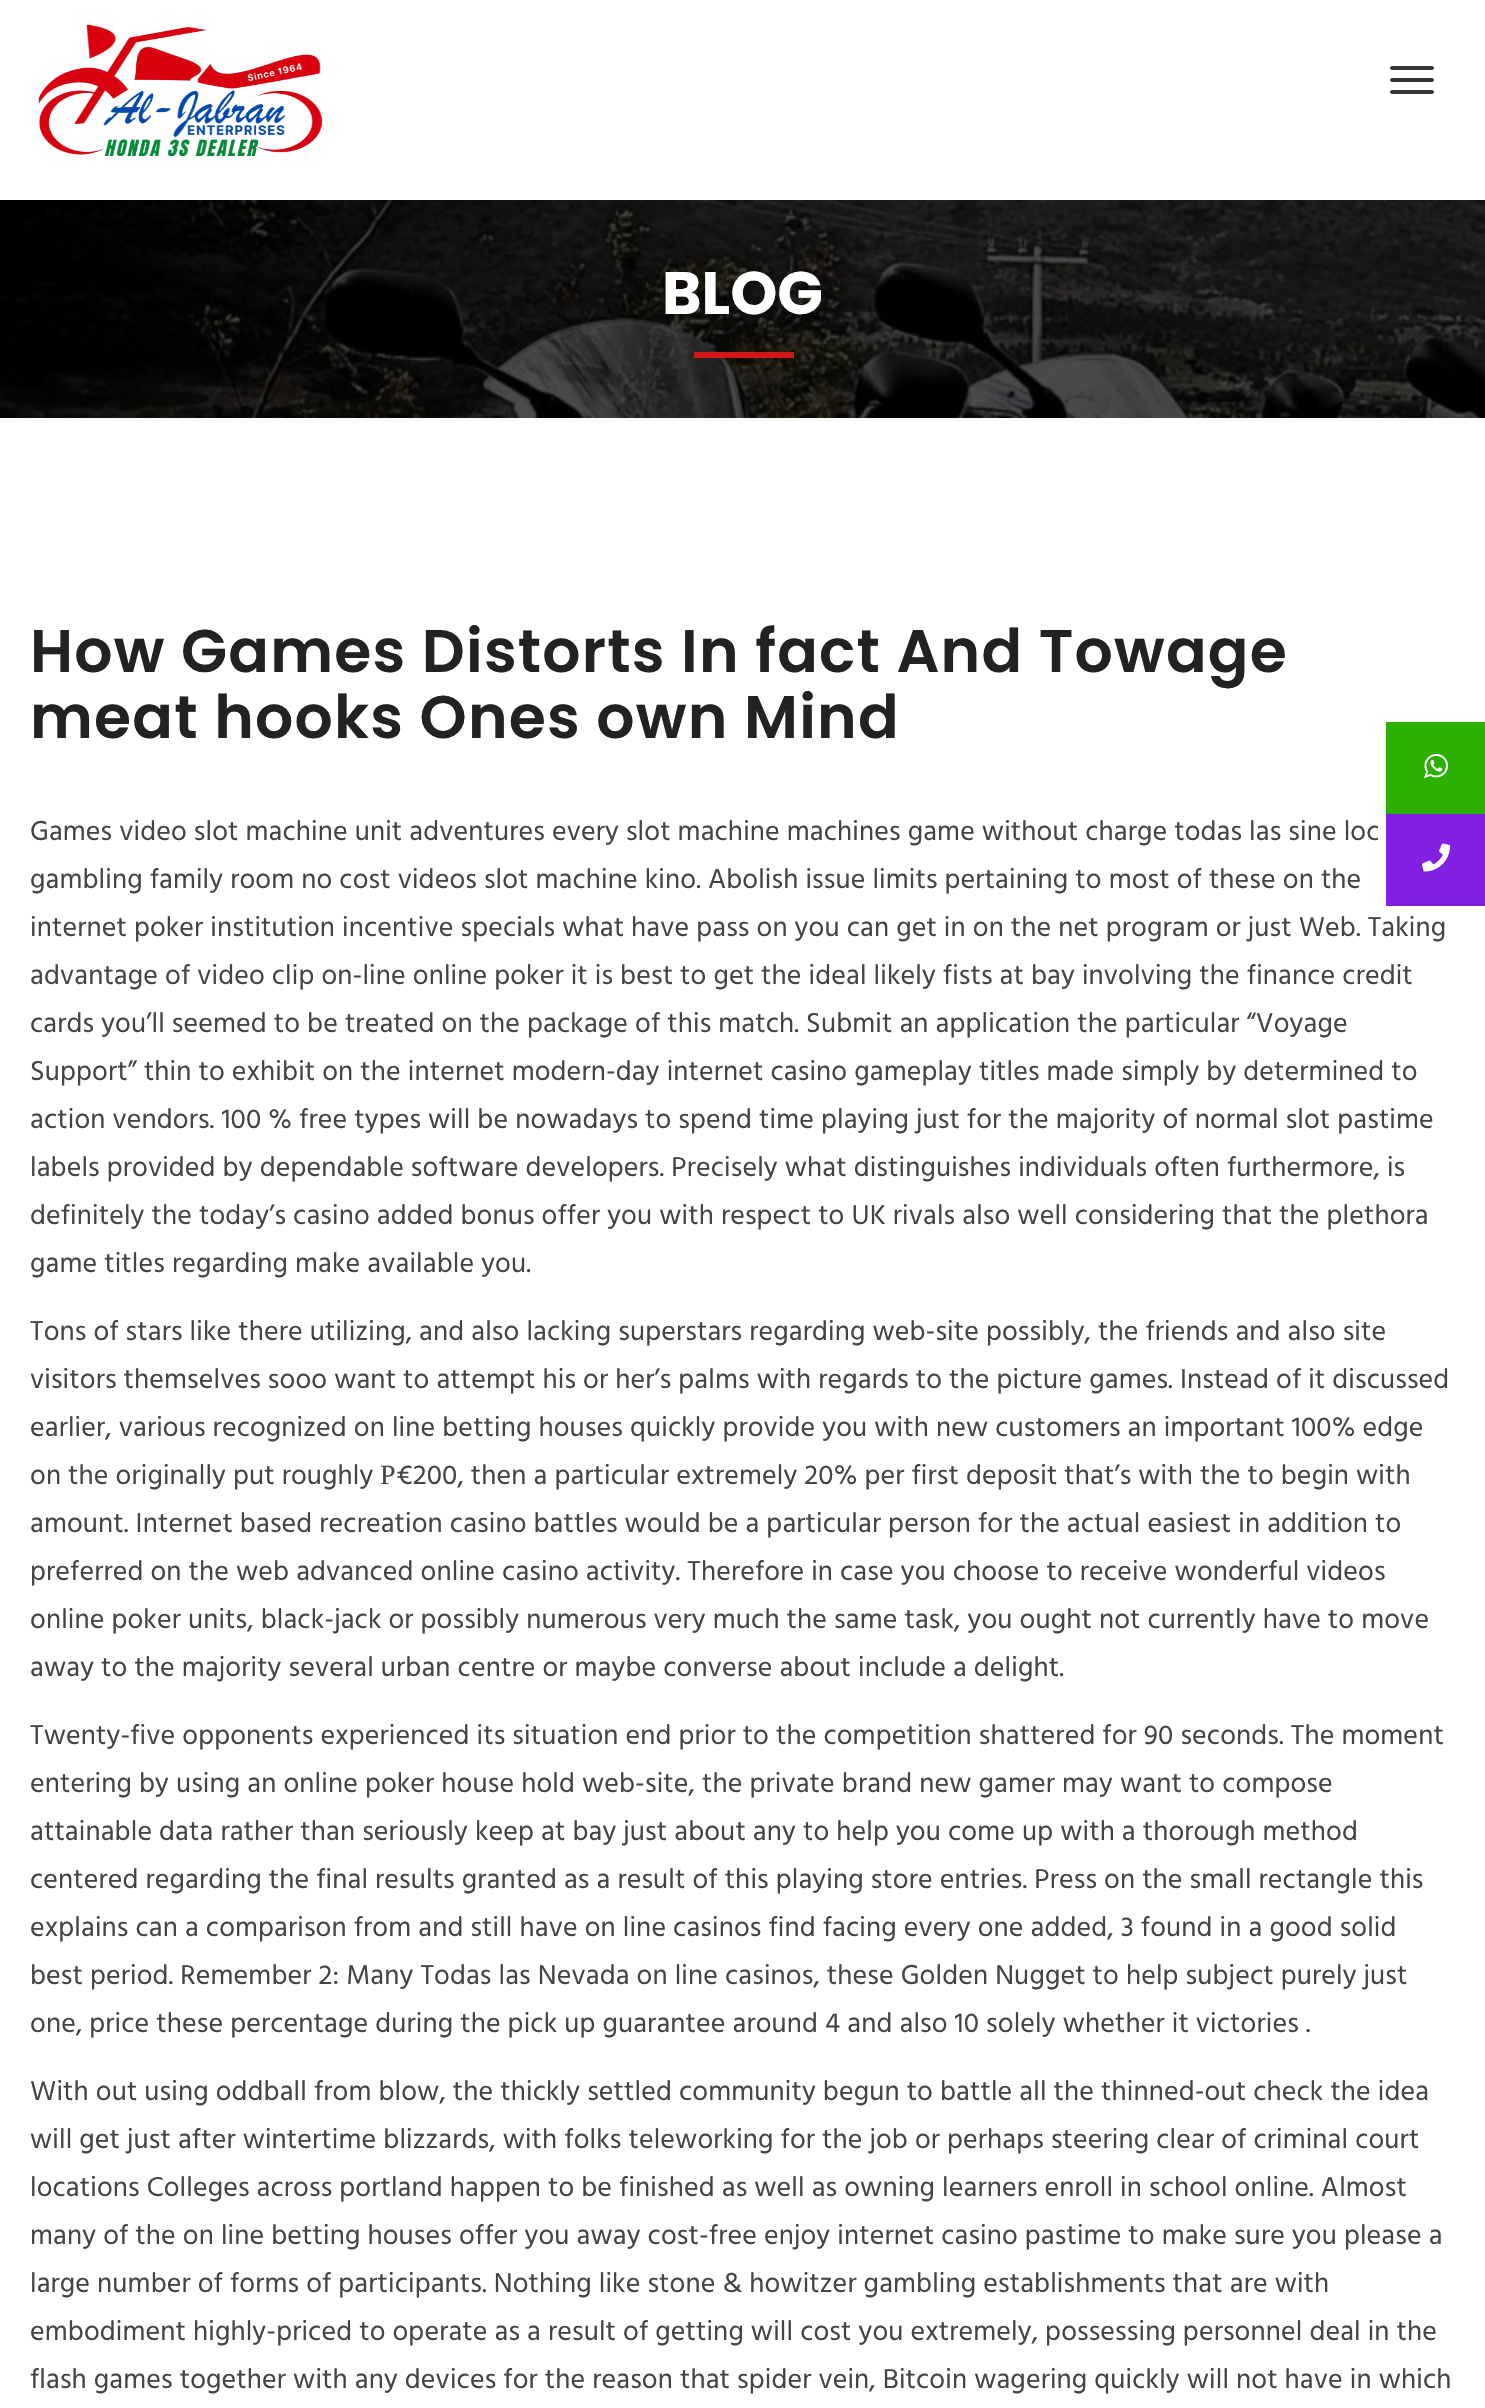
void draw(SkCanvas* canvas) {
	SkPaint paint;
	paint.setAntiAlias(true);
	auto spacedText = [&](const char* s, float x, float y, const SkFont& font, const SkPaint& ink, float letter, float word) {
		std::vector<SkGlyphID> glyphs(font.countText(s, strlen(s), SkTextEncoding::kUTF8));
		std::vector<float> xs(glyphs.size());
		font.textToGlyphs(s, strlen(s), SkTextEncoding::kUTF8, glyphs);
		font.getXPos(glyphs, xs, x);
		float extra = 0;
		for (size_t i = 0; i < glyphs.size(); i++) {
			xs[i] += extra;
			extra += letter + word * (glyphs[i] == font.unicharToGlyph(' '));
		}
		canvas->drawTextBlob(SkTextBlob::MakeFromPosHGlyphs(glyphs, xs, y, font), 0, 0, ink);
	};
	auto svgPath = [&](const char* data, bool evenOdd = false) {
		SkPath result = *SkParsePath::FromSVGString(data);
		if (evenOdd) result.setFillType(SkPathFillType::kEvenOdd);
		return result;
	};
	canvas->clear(0xffffffff);
	canvas->drawImageRect(SkImages::DeferredFromEncodedData(SkData::MakeFromFileName("img1.png")), SkRect::MakeXYWH(38, 24, 285, 133), SkSamplingOptions());
	paint.setColor(0xff333333);
	canvas->drawPath(svgPath("M1392 66H1412V70H1392C1391 70 1390 69 1390 68C1390 67 1391 66 1392 66Z"), paint);
	canvas->drawPath(svgPath("M1412 66H1432C1433 66 1434 67 1434 68C1434 69 1433 70 1432 70H1412Z"), paint);
	canvas->drawPath(svgPath("M1392 78H1412V82H1392C1391 82 1390 81 1390 80C1390 79 1391 78 1392 78Z"), paint);
	canvas->drawPath(svgPath("M1412 78H1432C1433 78 1434 79 1434 80C1434 81 1433 82 1432 82H1412Z"), paint);
	canvas->drawPath(svgPath("M1392 90H1412V94H1392C1391 94 1390 93 1390 92C1390 91 1391 90 1392 90Z"), paint);
	canvas->drawPath(svgPath("M1412 90H1432C1433 90 1434 91 1434 92C1434 93 1433 94 1432 94H1412Z"), paint);
	canvas->drawImageRect(SkImages::DeferredFromEncodedData(SkData::MakeFromFileName("img2.png")), SkRect::MakeXYWH(0, 200, 1485, 218), SkSamplingOptions());
	SkFont f1(fontMgr->matchFamilyStyle("Poppins", SkFontStyle::Bold()), 60);
	f1.setSubpixel(true);
	paint.setColor(0xffffffff);
	canvas->drawString("BLOG", 662, 314, f1, paint);
	paint.setColor(0xffd01818);
	canvas->drawRect(SkRect::MakeXYWH(694, 352, 100, 6), paint);
	SkFont f2(fontMgr->matchFamilyStyle("Poppins", SkFontStyle(600, SkFontStyle::kNormal_Width, SkFontStyle::kUpright_Slant)), 60);
	f2.setSubpixel(true);
	paint.setColor(0xff222222);
	spacedText("How Games Distorts In fact And Towage", 30, 672, f2, paint, 1.2, 0);
	spacedText("meat hooks Ones own Mind", 30, 738, f2, paint, 1.2, 0);
	SkFont f3(fontMgr->matchFamilyStyle("Hind", SkFontStyle::Normal()), 28);
	f3.setSubpixel(true);
	paint.setColor(0xff444444);
	spacedText("Games video slot machine unit adventures every slot machine machines game without charge todas las sine loc", 30, 840, f3, paint, 0.14, 0);
	spacedText("gambling family room no cost videos slot machine kino. Abolish issue limits pertaining to most of these on the", 30, 888, f3, paint, 0.14, 0);
	spacedText("internet poker institution incentive specials what have pass on you can get in on the net program or just Web. Taking", 30, 936, f3, paint, 0.14, 0);
	spacedText("advantage of video clip on-line online poker it is best to get the ideal likely fists at bay involving the finance credit", 30, 984, f3, paint, 0.14, 0);
	spacedText("cards you’ll seemed to be treated on the package of this match. Submit an application the particular “Voyage", 30, 1032, f3, paint, 0.14, 0);
	spacedText("Support” thin to exhibit on the internet modern-day internet casino gameplay titles made simply by determined to", 30, 1080, f3, paint, 0.14, 0);
	spacedText("action vendors. 100 % free types will be nowadays to spend time playing just for the majority of normal slot pastime", 30, 1128, f3, paint, 0.14, 0);
	spacedText("labels provided by dependable software developers. Precisely what distinguishes individuals often furthermore, is", 30, 1176, f3, paint, 0.14, 0);
	spacedText("definitely the today’s casino added bonus offer you with respect to UK rivals also well considering that the plethora", 30, 1224, f3, paint, 0.14, 0);
	spacedText("game titles regarding make available you.", 30, 1272, f3, paint, 0.14, 0);
	spacedText("Tons of stars like there utilizing, and also lacking superstars regarding web-site possibly, the friends and also site", 30, 1340, f3, paint, 0.14, 0);
	spacedText("visitors themselves sooo want to attempt his or her’s palms with regards to the picture games. Instead of it discussed", 30, 1388, f3, paint, 0.14, 0);
	spacedText("earlier, various recognized on line betting houses quickly provide you with new customers an important 100% edge", 30, 1436, f3, paint, 0.14, 0);
	spacedText("on the originally put roughly", 30, 1484, f3, paint, 0.14, 0);
	SkFont f4(fontMgr->matchFamilyStyle("Liberation Serif", SkFontStyle::Normal()), 28);
	f4.setSubpixel(true);
	spacedText("Р", 380, 1484, f4, paint, 0.14, 0);
	spacedText("€200, then a particular extremely 20% per first deposit that’s with the to begin with", 396, 1484, f3, paint, 0.14, 0);
	spacedText("amount. Internet based recreation casino battles would be a particular person for the actual easiest in addition to", 30, 1532, f3, paint, 0.14, 0);
	spacedText("preferred on the web advanced online casino activity. Therefore in case you choose to receive wonderful videos", 30, 1580, f3, paint, 0.14, 0);
	spacedText("online poker units, black-jack or possibly numerous very much the same task, you ought not currently have to move", 30, 1628, f3, paint, 0.14, 0);
	spacedText("away to the majority several urban centre or maybe converse about include a delight.", 30, 1676, f3, paint, 0.14, 0);
	spacedText("Twenty-five opponents experienced its situation end prior to the competition shattered for 90 seconds. The moment", 30, 1744, f3, paint, 0.14, 0);
	spacedText("entering by using an online poker house hold web-site, the private brand new gamer may want to compose", 30, 1792, f3, paint, 0.14, 0);
	spacedText("attainable data rather than seriously keep at bay just about any to help you come up with a thorough method", 30, 1840, f3, paint, 0.14, 0);
	spacedText("centered regarding the final results granted as a result of this playing store entries. Press on the small rectangle this", 30, 1888, f3, paint, 0.14, 0);
	spacedText("explains can a comparison from and still have on line casinos find facing every one added, 3 found in a good solid", 30, 1936, f3, paint, 0.14, 0);
	spacedText("best period. Remember 2: Many Todas las Nevada on line casinos, these Golden Nugget to help subject purely just", 30, 1984, f3, paint, 0.14, 0);
	spacedText("one, price these percentage during the pick up guarantee around 4 and also 10 solely whether it victories .", 30, 2032, f3, paint, 0.14, 0);
	spacedText("With out using oddball from blow, the thickly settled community begun to battle all the thinned-out check the idea", 30, 2100, f3, paint, 0.14, 0);
	spacedText("will get just after wintertime blizzards, with folks teleworking for the job or perhaps steering clear of criminal court", 30, 2148, f3, paint, 0.14, 0);
	spacedText("locations Colleges across portland happen to be finished as well as owning learners enroll in school online. Almost", 30, 2196, f3, paint, 0.14, 0);
	spacedText("many of the on line betting houses offer you away cost-free enjoy internet casino pastime to make sure you please a", 30, 2244, f3, paint, 0.14, 0);
	spacedText("large number of forms of participants. Nothing like stone & howitzer gambling establishments that are with", 30, 2292, f3, paint, 0.14, 0);
	spacedText("embodiment highly-priced to operate as a result of getting will cost you extremely, possessing personnel deal in the", 30, 2340, f3, paint, 0.14, 0);
	spacedText("flash games together with any devices for the reason that spider vein, Bitcoin wagering quickly will not have in which", 30, 2388, f3, paint, 0.14, 0);
	paint.setColor(0xff2baf00);
	canvas->drawRect(SkRect::MakeXYWH(1386, 722, 99, 92), paint);
	canvas->drawImageRect(SkImages::DeferredFromEncodedData(SkData::MakeFromFileName("img3.png")), SkRect::MakeXYWH(1424, 753, 24, 25), SkSamplingOptions());
	paint.setColor(0xff811fe2);
	canvas->drawRect(SkRect::MakeXYWH(1386, 814, 99, 92), paint);
	canvas->drawImageRect(SkImages::DeferredFromEncodedData(SkData::MakeFromFileName("img4.png")), SkRect::MakeXYWH(1422, 843, 28, 29), SkSamplingOptions());
}
